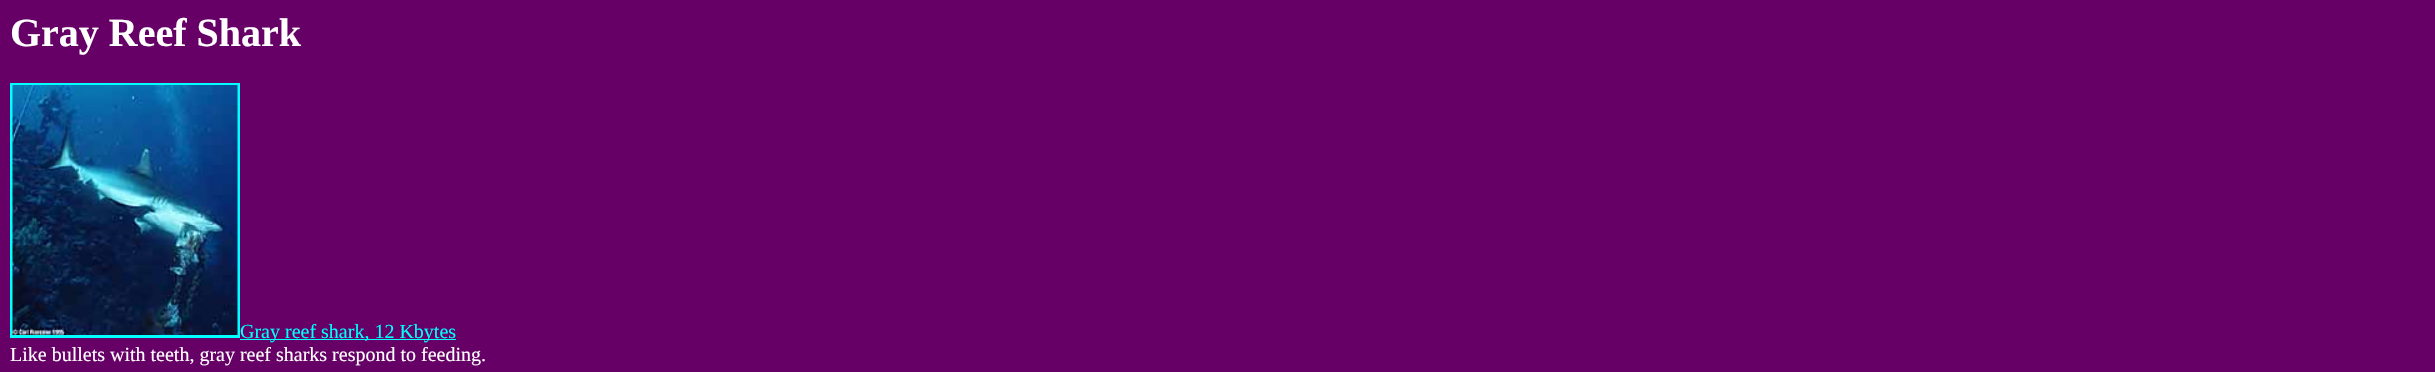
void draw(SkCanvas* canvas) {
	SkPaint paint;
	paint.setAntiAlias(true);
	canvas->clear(0xff660066);
	SkFont f1(fontMgr->matchFamilyStyle("Liberation Serif", SkFontStyle::Bold()), 40);
	f1.setSubpixel(true);
	paint.setColor(0xffffffff);
	canvas->drawString("Gray Reef Shark", 10, 46, f1, paint);
	paint.setStroke(true);
	paint.setStrokeWidth(3);
	paint.setColor(0xff00ffff);
	canvas->drawRect(SkRect::MakeXYWH(11.5, 84.5, 227, 252), paint);
	canvas->drawImageRect(SkImages::DeferredFromEncodedData(SkData::MakeFromFileName("img1.png")), SkRect::MakeXYWH(12, 85, 226, 250), SkSamplingOptions());
	paint.setStroke(false);
	canvas->drawRect(SkRect::MakeXYWH(240, 339, 216, 1), paint);
	SkFont f2(fontMgr->matchFamilyStyle("Liberation Serif", SkFontStyle::Normal()), 20);
	f2.setSubpixel(true);
	canvas->drawString("Gray reef shark, 12 Kbytes", 240, 338, f2, paint);
	paint.setColor(0xffffffff);
	canvas->drawString("Like bullets with teeth, gray reef sharks respond to feeding.", 10, 361, f2, paint);
}
